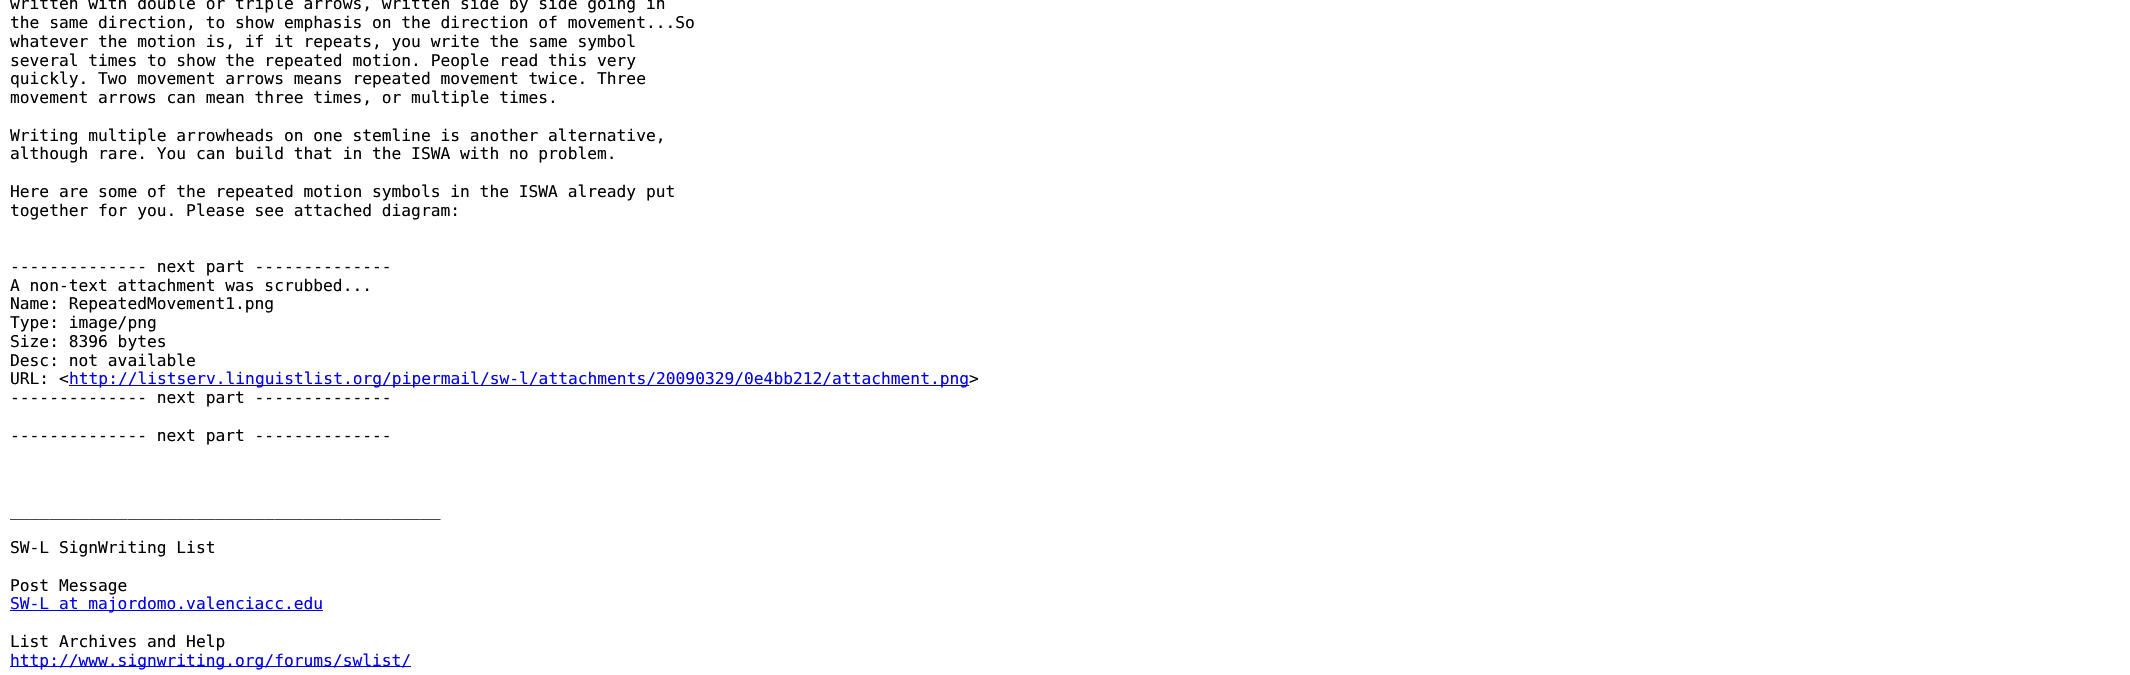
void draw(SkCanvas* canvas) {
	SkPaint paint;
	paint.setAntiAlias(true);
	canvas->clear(0xffffffff);
	SkFont f1(fontMgr->matchFamilyStyle("DejaVu Sans Mono", SkFontStyle::Normal()), 16.25);
	f1.setSubpixel(true);
	paint.setColor(0xff000000);
	canvas->drawString("written with double or triple arrows, written side by side going in", 10, 9, f1, paint);
	canvas->drawString("the same direction, to show emphasis on the direction of movement...So", 10, 28, f1, paint);
	canvas->drawString("whatever the motion is, if it repeats, you write the same symbol", 10, 47, f1, paint);
	canvas->drawString("several times to show the repeated motion. People read this very", 10, 66, f1, paint);
	canvas->drawString("quickly. Two movement arrows means repeated movement twice. Three", 10, 84, f1, paint);
	canvas->drawString("movement arrows can mean three times, or multiple times.", 10, 103, f1, paint);
	canvas->drawString("Writing multiple arrowheads on one stemline is another alternative,", 10, 141, f1, paint);
	canvas->drawString("although rare. You can build that in the ISWA with no problem.", 10, 159, f1, paint);
	canvas->drawString("Here are some of the repeated motion symbols in the ISWA already put", 10, 197, f1, paint);
	canvas->drawString("together for you. Please see attached diagram:", 10, 216, f1, paint);
	canvas->drawString("-------------- next part --------------", 10, 272, f1, paint);
	canvas->drawString("A non-text attachment was scrubbed...", 10, 291, f1, paint);
	canvas->drawString("Name: RepeatedMovement1.png", 10, 309, f1, paint);
	canvas->drawString("Type: image/png", 10, 328, f1, paint);
	canvas->drawString("Size: 8396 bytes", 10, 347, f1, paint);
	canvas->drawString("Desc: not available", 10, 366, f1, paint);
	canvas->drawString("URL: <", 10, 384, f1, paint);
	paint.setColor(0xff0000ee);
	canvas->drawRect(SkRect::MakeXYWH(69, 385, 900, 1), paint);
	canvas->drawString("http://listserv.linguistlist.org/pipermail/sw-l/attachments/20090329/0e4bb212/attachment.png", 69, 384, f1, paint);
	paint.setColor(0xff000000);
	canvas->drawString(">", 969, 384, f1, paint);
	canvas->drawString("-------------- next part --------------", 10, 403, f1, paint);
	canvas->drawString("-------------- next part --------------", 10, 441, f1, paint);
	canvas->drawString("____________________________________________", 10, 516, f1, paint);
	canvas->drawString("SW-L SignWriting List", 10, 553, f1, paint);
	canvas->drawString("Post Message", 10, 591, f1, paint);
	paint.setColor(0xff0000ee);
	canvas->drawRect(SkRect::MakeXYWH(10, 610, 313, 1), paint);
	canvas->drawString("SW-L at majordomo.valenciacc.edu", 10, 609, f1, paint);
	paint.setColor(0xff000000);
	canvas->drawString("List Archives and Help", 10, 647, f1, paint);
	paint.setColor(0xff0000ee);
	canvas->drawRect(SkRect::MakeXYWH(10, 666, 401, 1), paint);
	canvas->drawString("http://www.signwriting.org/forums/swlist/", 10, 666, f1, paint);
}
